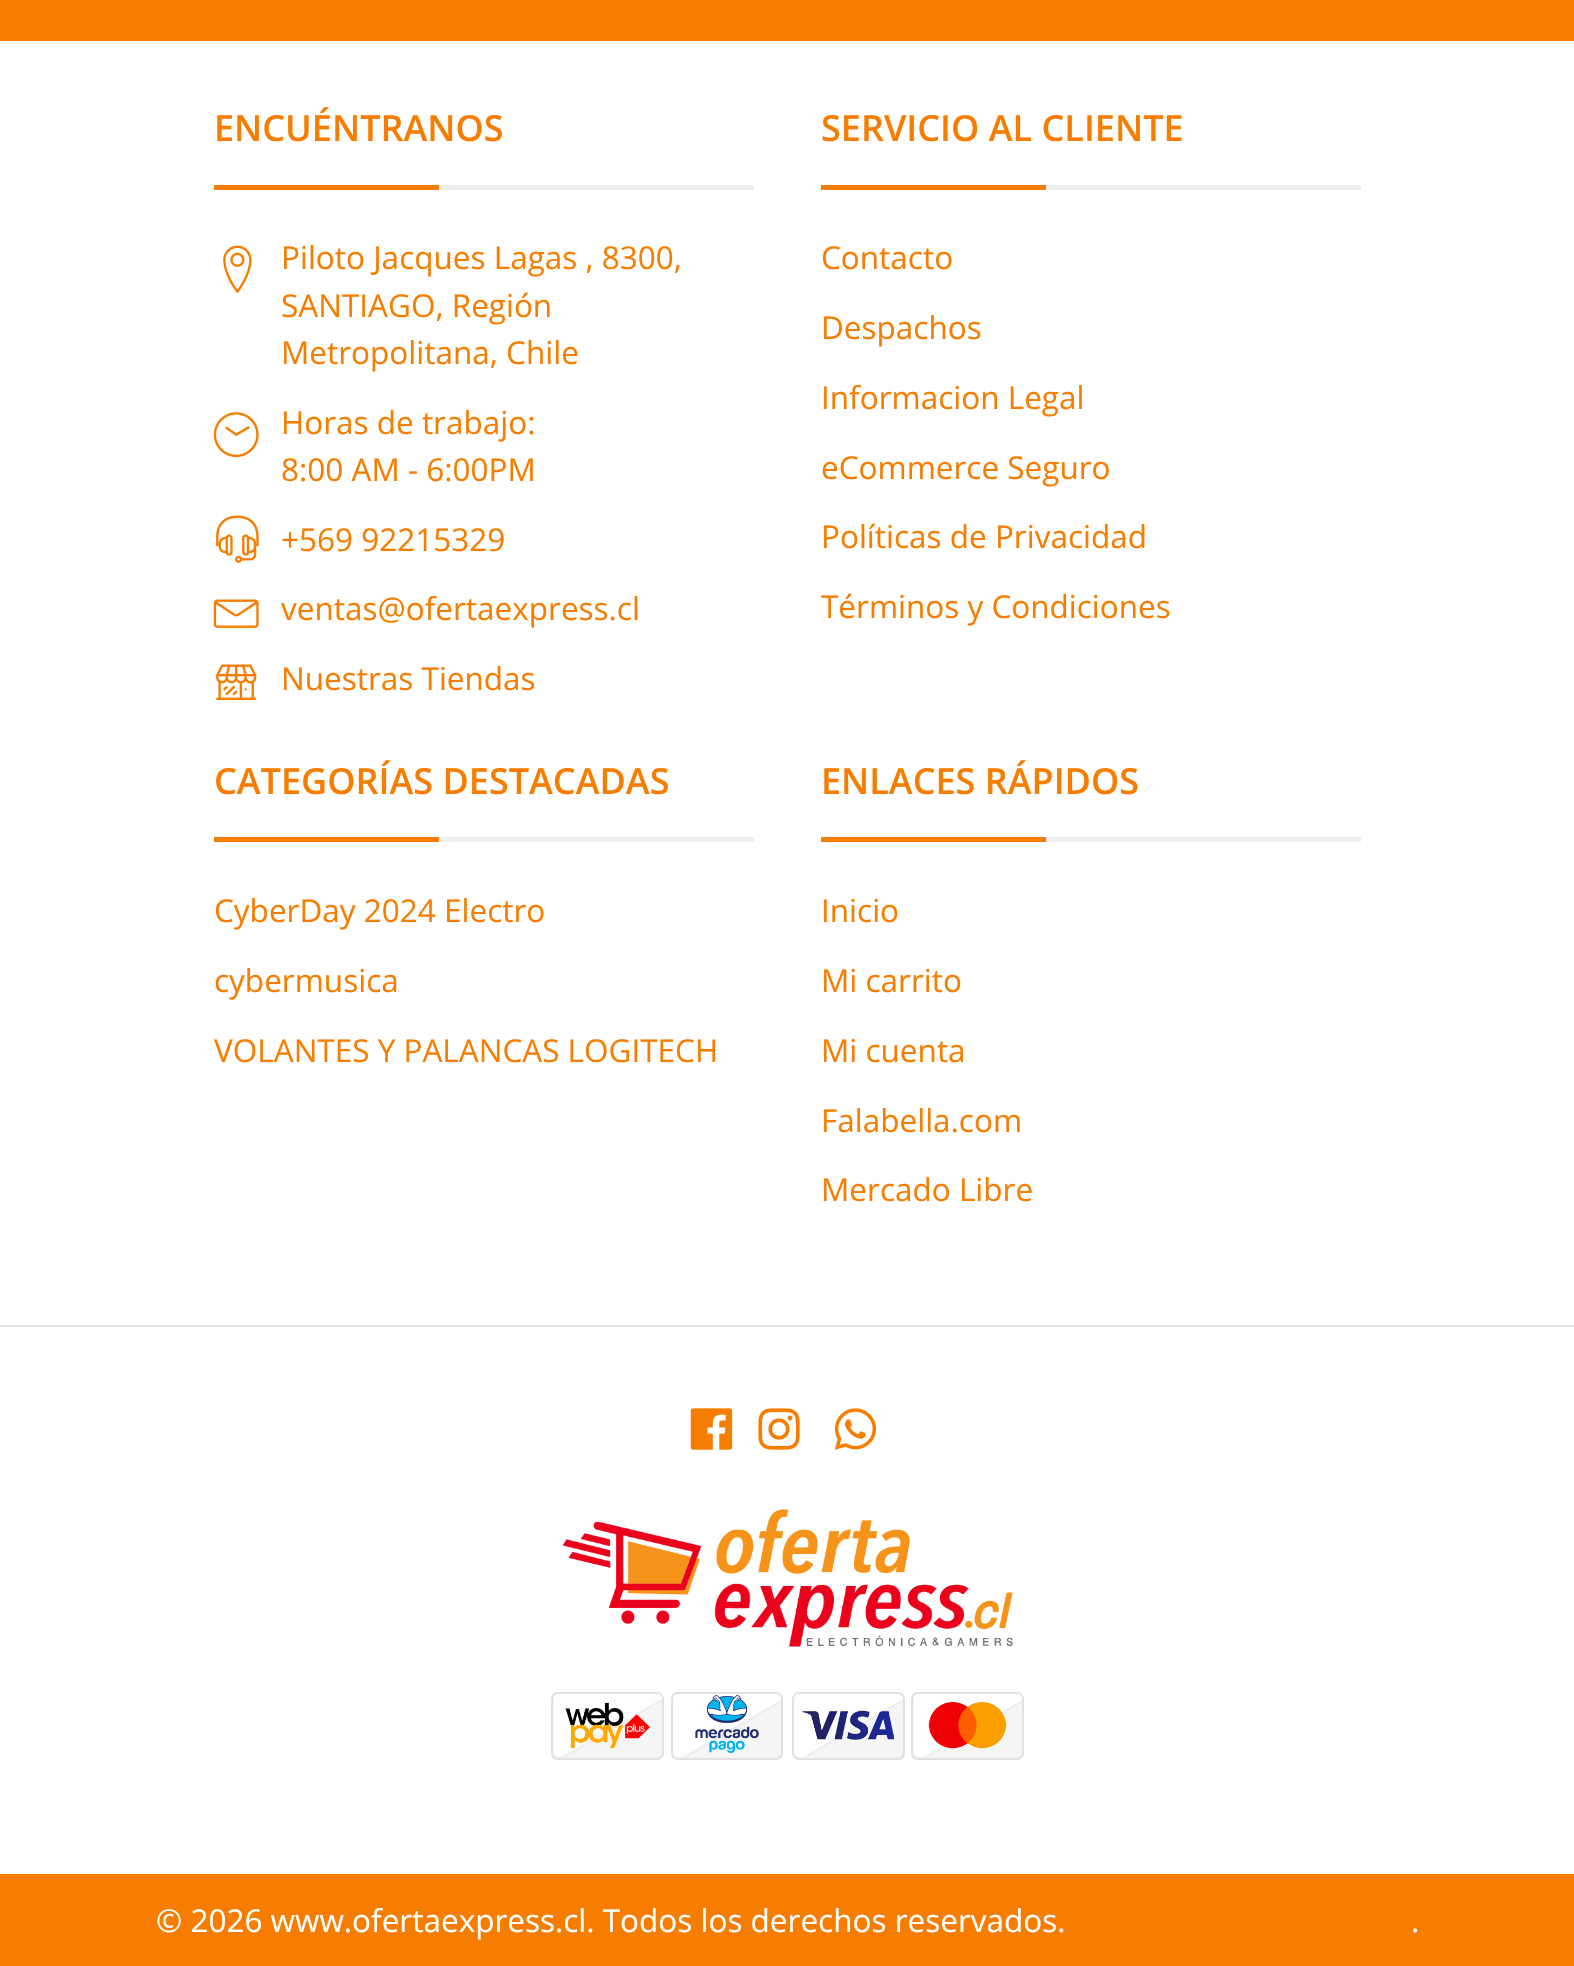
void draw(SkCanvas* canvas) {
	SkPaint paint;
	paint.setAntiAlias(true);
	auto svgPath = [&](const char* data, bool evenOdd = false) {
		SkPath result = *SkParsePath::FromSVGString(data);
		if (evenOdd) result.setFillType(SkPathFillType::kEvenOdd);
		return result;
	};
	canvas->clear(0xffffffff);
	paint.setColor(0xfff77d00);
	canvas->drawRect(SkRect::MakeXYWH(0, 0, 1574, 41), paint);
	paint.setColor(0xffeeeeee);
	canvas->drawRect(SkRect::MakeXYWH(439, 185, 315, 5), paint);
	SkFont f1(fontMgr->matchFamilyStyle("Open Sans", SkFontStyle(600, SkFontStyle::kNormal_Width, SkFontStyle::kUpright_Slant)), 36);
	f1.setSubpixel(true);
	paint.setColor(0xfff77d00);
	canvas->drawString("ENCUÉNTRANOS", 214, 141, f1, paint);
	canvas->drawRect(SkRect::MakeXYWH(214, 185, 225, 5), paint);
	canvas->drawImageRect(SkImages::DeferredFromEncodedData(SkData::MakeFromFileName("img1.png")), SkRect::MakeXYWH(223, 245, 29, 48), SkSamplingOptions());
	SkFont f2(fontMgr->matchFamilyStyle("Open Sans", SkFontStyle::Normal()), 31.5);
	f2.setSubpixel(true);
	canvas->drawString("Piloto Jacques Lagas , 8300,", 281, 269, f2, paint);
	canvas->drawString("SANTIAGO, Región", 281, 317, f2, paint);
	canvas->drawString("Metropolitana, Chile", 281, 364, f2, paint);
	canvas->drawImageRect(SkImages::DeferredFromEncodedData(SkData::MakeFromFileName("img2.png")), SkRect::MakeXYWH(213, 412, 46, 46), SkSamplingOptions());
	canvas->drawString("Horas de trabajo:", 281, 434, f2, paint);
	canvas->drawString("8:00 AM - 6:00PM", 281, 481, f2, paint);
	canvas->drawImageRect(SkImages::DeferredFromEncodedData(SkData::MakeFromFileName("img3.png")), SkRect::MakeXYWH(216, 515, 43, 48), SkSamplingOptions());
	canvas->drawString("+569 92215329", 281, 551, f2, paint);
	canvas->drawImageRect(SkImages::DeferredFromEncodedData(SkData::MakeFromFileName("img4.png")), SkRect::MakeXYWH(213, 599, 46, 29), SkSamplingOptions());
	canvas->drawString("ventas@ofertaexpress.cl", 281, 620, f2, paint);
	canvas->drawImageRect(SkImages::DeferredFromEncodedData(SkData::MakeFromFileName("img5.png")), SkRect::MakeXYWH(216, 664, 41, 36), SkSamplingOptions());
	canvas->drawString("Nuestras Tiendas", 281, 690, f2, paint);
	paint.setColor(0xffeeeeee);
	canvas->drawRect(SkRect::MakeXYWH(1046, 185, 315, 5), paint);
	paint.setColor(0xfff77d00);
	canvas->drawString("SERVICIO AL CLIENTE", 821, 141, f1, paint);
	canvas->drawRect(SkRect::MakeXYWH(821, 185, 225, 5), paint);
	canvas->drawString("Contacto", 821, 269, f2, paint);
	canvas->drawString("Despachos", 821, 339, f2, paint);
	canvas->drawString("Informacion Legal", 821, 409, f2, paint);
	canvas->drawString("eCommerce Seguro", 821, 479, f2, paint);
	canvas->drawString("Políticas de Privacidad", 821, 548, f2, paint);
	canvas->drawString("Términos y Condiciones", 821, 618, f2, paint);
	paint.setColor(0xffeeeeee);
	canvas->drawRect(SkRect::MakeXYWH(439, 837, 315, 5), paint);
	paint.setColor(0xfff77d00);
	canvas->drawString("CATEGORÍAS DESTACADAS", 214, 794, f1, paint);
	canvas->drawRect(SkRect::MakeXYWH(214, 837, 225, 5), paint);
	canvas->drawString("CyberDay 2024 Electro", 214, 922, f2, paint);
	canvas->drawString("cybermusica", 214, 992, f2, paint);
	canvas->drawString("VOLANTES Y PALANCAS LOGITECH", 214, 1062, f2, paint);
	paint.setColor(0xffeeeeee);
	canvas->drawRect(SkRect::MakeXYWH(1046, 837, 315, 5), paint);
	paint.setColor(0xfff77d00);
	canvas->drawString("ENLACES RÁPIDOS", 821, 794, f1, paint);
	canvas->drawRect(SkRect::MakeXYWH(821, 837, 225, 5), paint);
	canvas->drawString("Inicio", 821, 922, f2, paint);
	canvas->drawString("Mi carrito", 821, 992, f2, paint);
	canvas->drawString("Mi cuenta", 821, 1062, f2, paint);
	canvas->drawString("Falabella.com", 821, 1132, f2, paint);
	canvas->drawString("Mercado Libre", 821, 1201, f2, paint);
	paint.setColor(0xffe6e6e6);
	canvas->drawRect(SkRect::MakeXYWH(0, 1325, 1574, 2), paint);
	canvas->drawImageRect(SkImages::DeferredFromEncodedData(SkData::MakeFromFileName("img6.png")), SkRect::MakeXYWH(690, 1408, 43, 42), SkSamplingOptions());
	canvas->drawImageRect(SkImages::DeferredFromEncodedData(SkData::MakeFromFileName("img7.png")), SkRect::MakeXYWH(758, 1408, 42, 42), SkSamplingOptions());
	canvas->drawImageRect(SkImages::DeferredFromEncodedData(SkData::MakeFromFileName("img8.png")), SkRect::MakeXYWH(834, 1408, 43, 42), SkSamplingOptions());
	canvas->drawImageRect(SkImages::DeferredFromEncodedData(SkData::MakeFromFileName("img9.png")), SkRect::MakeXYWH(562, 1509, 451, 138), SkSamplingOptions());
	paint.setColor(0xfff5f5f5);
	canvas->drawRoundRect(SkRect::MakeXYWH(552, 1693, 111, 66), 6, 6, paint);
	paint.setStroke(true);
	paint.setStrokeWidth(2);
	paint.setColor(0xffe1e1e1);
	canvas->drawRoundRect(SkRect::MakeXYWH(552, 1693, 111, 66), 6, 6, paint);
	paint.setStroke(false);
	paint.setColor(0xffffffff);
	canvas->drawPath(svgPath("M559 1694H657C660 1694 662 1696 662 1699V1701L565 1757H559C556 1757 554 1755 554 1752V1699C554 1696 556 1694 559 1694Z"), paint);
	canvas->save();
	canvas->clipPath(svgPath("M559 1694H657C660 1694 662 1696 662 1699V1752C662 1755 660 1757 657 1757H559C556 1757 554 1755 554 1752V1699C554 1696 556 1694 559 1694Z"), true);
	paint.setStroke(true);
	paint.setStrokeWidth(2.2);
	paint.setColor(0xffeeeeee);
	canvas->drawPath(svgPath("M593 1482.5L704.5 1675.5L511.5 1787L400.5 1594Z"), paint);
	canvas->restore();
	canvas->drawImageRect(SkImages::DeferredFromEncodedData(SkData::MakeFromFileName("img10.png")), SkRect::MakeXYWH(565, 1702, 85, 46), SkSamplingOptions());
	paint.setStroke(false);
	paint.setColor(0xfff5f5f5);
	canvas->drawRoundRect(SkRect::MakeXYWH(672, 1693, 110, 66), 6, 6, paint);
	paint.setStroke(true);
	paint.setStrokeWidth(2);
	paint.setColor(0xffe1e1e1);
	canvas->drawRoundRect(SkRect::MakeXYWH(672, 1693, 110, 66), 6, 6, paint);
	paint.setStroke(false);
	paint.setColor(0xffffffff);
	canvas->drawPath(svgPath("M678 1694H776C779 1694 781 1696 781 1699V1702L686 1757H678C675 1757 673 1755 673 1752V1699C673 1696 675 1694 678 1694Z"), paint);
	canvas->save();
	canvas->clipPath(svgPath("M678 1694H776C779 1694 781 1696 781 1699V1752C781 1755 779 1757 776 1757H678C675 1757 673 1755 673 1752V1699C673 1696 675 1694 678 1694Z"), true);
	paint.setStroke(true);
	paint.setStrokeWidth(2.2);
	paint.setColor(0xffeeeeee);
	canvas->drawPath(svgPath("M714 1482.5L825.5 1675.5L632.5 1787L521 1594Z"), paint);
	canvas->restore();
	canvas->drawImageRect(SkImages::DeferredFromEncodedData(SkData::MakeFromFileName("img11.png")), SkRect::MakeXYWH(695, 1695, 64, 58), SkSamplingOptions());
	paint.setStroke(false);
	paint.setColor(0xfff5f5f5);
	canvas->drawRoundRect(SkRect::MakeXYWH(793, 1693, 111, 66), 6, 6, paint);
	paint.setStroke(true);
	paint.setStrokeWidth(2);
	paint.setColor(0xffe1e1e1);
	canvas->drawRoundRect(SkRect::MakeXYWH(793, 1693, 111, 66), 6, 6, paint);
	paint.setStroke(false);
	paint.setColor(0xffffffff);
	canvas->drawPath(svgPath("M799 1694H897C900 1694 902 1696 902 1699V1702L807 1757H799C796 1757 794 1755 794 1752V1699C794 1696 796 1694 799 1694Z"), paint);
	canvas->save();
	canvas->clipPath(svgPath("M799 1694H897C900 1694 902 1696 902 1699V1752C902 1755 900 1757 897 1757H799C796 1757 794 1755 794 1752V1699C794 1696 796 1694 799 1694Z"), true);
	paint.setStroke(true);
	paint.setStrokeWidth(2.2);
	paint.setColor(0xffeeeeee);
	canvas->drawPath(svgPath("M834.5 1482.5L946 1675.5L753 1787L641.5 1594Z"), paint);
	canvas->restore();
	canvas->drawImageRect(SkImages::DeferredFromEncodedData(SkData::MakeFromFileName("img12.png")), SkRect::MakeXYWH(802, 1710, 92, 30), SkSamplingOptions());
	paint.setStroke(false);
	paint.setColor(0xfff5f5f5);
	canvas->drawRoundRect(SkRect::MakeXYWH(912, 1693, 111, 66), 6, 6, paint);
	paint.setStroke(true);
	paint.setStrokeWidth(2);
	paint.setColor(0xffe1e1e1);
	canvas->drawRoundRect(SkRect::MakeXYWH(912, 1693, 111, 66), 6, 6, paint);
	paint.setStroke(false);
	paint.setColor(0xffffffff);
	canvas->drawPath(svgPath("M919 1694H1017C1020 1694 1022 1696 1022 1699V1702L927 1757H919C916 1757 914 1755 914 1752V1699C914 1696 916 1694 919 1694Z"), paint);
	canvas->save();
	canvas->clipPath(svgPath("M919 1694H1017C1020 1694 1022 1696 1022 1699V1752C1022 1755 1020 1757 1017 1757H919C916 1757 914 1755 914 1752V1699C914 1696 916 1694 919 1694Z"), true);
	paint.setStroke(true);
	paint.setStrokeWidth(2.2);
	paint.setColor(0xffeeeeee);
	canvas->drawPath(svgPath("M955.5 1482.5L1066.5 1675.5L874 1787L762.5 1594Z"), paint);
	canvas->restore();
	canvas->drawImageRect(SkImages::DeferredFromEncodedData(SkData::MakeFromFileName("img13.png")), SkRect::MakeXYWH(928, 1702, 79, 47), SkSamplingOptions());
	paint.setStroke(false);
	paint.setColor(0xfff77d00);
	canvas->drawRect(SkRect::MakeXYWH(0, 1874, 1574, 92), paint);
	paint.setColor(0xffffffff);
	canvas->drawString("© 2026 www.ofertaexpress.cl. Todos los derechos reservados.", 156, 1932, f2, paint);
	canvas->drawString(".", 1411, 1932, f2, paint);
}
